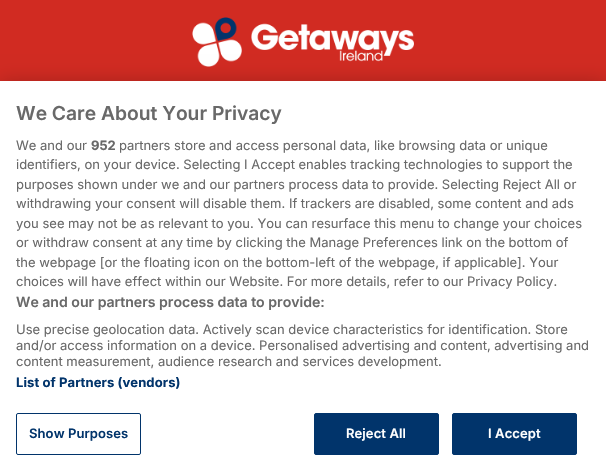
void draw(SkCanvas* canvas) {
	SkPaint paint;
	paint.setAntiAlias(true);
	auto spacedText = [&](const char* s, float x, float y, const SkFont& font, const SkPaint& ink, float letter, float word) {
		std::vector<SkGlyphID> glyphs(font.countText(s, strlen(s), SkTextEncoding::kUTF8));
		std::vector<float> xs(glyphs.size());
		font.textToGlyphs(s, strlen(s), SkTextEncoding::kUTF8, glyphs);
		font.getXPos(glyphs, xs, x);
		float extra = 0;
		for (size_t i = 0; i < glyphs.size(); i++) {
			xs[i] += extra;
			extra += letter + word * (glyphs[i] == font.unicharToGlyph(' '));
		}
		canvas->drawTextBlob(SkTextBlob::MakeFromPosHGlyphs(glyphs, xs, y, font), 0, 0, ink);
	};
	canvas->clear(0xffd12b22);
	canvas->drawImageRect(SkImages::DeferredFromEncodedData(SkData::MakeFromFileName("img1.png")), SkRect::MakeXYWH(192, 17, 222, 50), SkSamplingOptions());
	paint.setColor(0x33000000);
	paint.setMaskFilter(SkMaskFilter::MakeBlur(kNormal_SkBlurStyle, 9));
	canvas->drawRect(SkRect::MakeXYWH(0, 81, 606, 395), paint);
	paint.setMaskFilter(nullptr);
	paint.setColor(0xffffffff);
	canvas->drawRect(SkRect::MakeXYWH(0, 81, 606, 395), paint);
	SkFont f1(fontMgr->matchFamilyStyle("Inter", SkFontStyle(600, SkFontStyle::kNormal_Width, SkFontStyle::kUpright_Slant)), 19.25);
	f1.setSubpixel(true);
	paint.setColor(0xff696969);
	canvas->drawString("We Care About Your Privacy", 16, 120, f1, paint);
	SkFont f2(fontMgr->matchFamilyStyle("Inter", SkFontStyle::Normal()), 13);
	f2.setSubpixel(true);
	canvas->drawString("We and our", 16, 150, f2, paint);
	SkFont f3(fontMgr->matchFamilyStyle("Inter", SkFontStyle::Bold()), 13);
	f3.setSubpixel(true);
	canvas->drawString("952", 91, 150, f3, paint);
	canvas->drawString("partners store and access personal data, like browsing data or unique", 119, 150, f2, paint);
	canvas->drawString("identifiers, on your device. Selecting I Accept enables tracking technologies to support the", 16, 169, f2, paint);
	canvas->drawString("purposes shown under we and our partners process data to provide. Selecting Reject All or", 16, 189, f2, paint);
	canvas->drawString("withdrawing your consent will disable them. If trackers are disabled, some content and ads", 16, 208, f2, paint);
	canvas->drawString("you see may not be as relevant to you. You can resurface this menu to change your choices", 16, 228, f2, paint);
	canvas->drawString("or withdraw consent at any time by clicking the Manage Preferences link on the bottom of", 16, 247, f2, paint);
	canvas->drawString("the webpage [or the floating icon on the bottom-left of the webpage, if applicable]. Your", 16, 267, f2, paint);
	canvas->drawString("choices will have effect within our Website. For more details, refer to our Privacy Policy.", 16, 286, f2, paint);
	SkFont f4(fontMgr->matchFamilyStyle("Inter", SkFontStyle(600, SkFontStyle::kNormal_Width, SkFontStyle::kUpright_Slant)), 14.1);
	f4.setSubpixel(true);
	canvas->drawString("We and our partners process data to provide:", 16, 307, f4, paint);
	canvas->drawString("Use precise geolocation data. Actively scan device characteristics for identification. Store", 16, 334, f2, paint);
	canvas->drawString("and/or access information on a device. Personalised advertising and content, advertising and", 16, 350, f2, paint);
	canvas->drawString("content measurement, audience research and services development.", 16, 366, f2, paint);
	paint.setColor(0xff01346b);
	spacedText("List of Partners (vendors)", 16, 387, f3, paint, 0.1, 0);
	paint.setStroke(true);
	paint.setStrokeWidth(1);
	canvas->drawRoundRect(SkRect::MakeXYWH(16.5, 413.5, 124, 41), 1.5, 1.5, paint);
	SkFont f5(fontMgr->matchFamilyStyle("Inter", SkFontStyle(600, SkFontStyle::kNormal_Width, SkFontStyle::kUpright_Slant)), 13);
	f5.setSubpixel(true);
	paint.setStroke(false);
	spacedText("Show Purposes", 29, 438, f5, paint, 0.1, 0);
	canvas->drawRoundRect(SkRect::MakeXYWH(314.5, 413.5, 124, 41), 1.5, 1.5, paint);
	paint.setStroke(true);
	canvas->drawRoundRect(SkRect::MakeXYWH(314.5, 413.5, 124, 41), 1.5, 1.5, paint);
	paint.setStroke(false);
	paint.setColor(0xffffffff);
	spacedText("Reject All", 346, 438, f5, paint, 0.1, 0);
	paint.setColor(0xff01346b);
	canvas->drawRoundRect(SkRect::MakeXYWH(452.5, 413.5, 124, 41), 1.5, 1.5, paint);
	paint.setStroke(true);
	canvas->drawRoundRect(SkRect::MakeXYWH(452.5, 413.5, 124, 41), 1.5, 1.5, paint);
	paint.setStroke(false);
	paint.setColor(0xffffffff);
	spacedText("I Accept", 488, 438, f5, paint, 0.1, 0);
}
